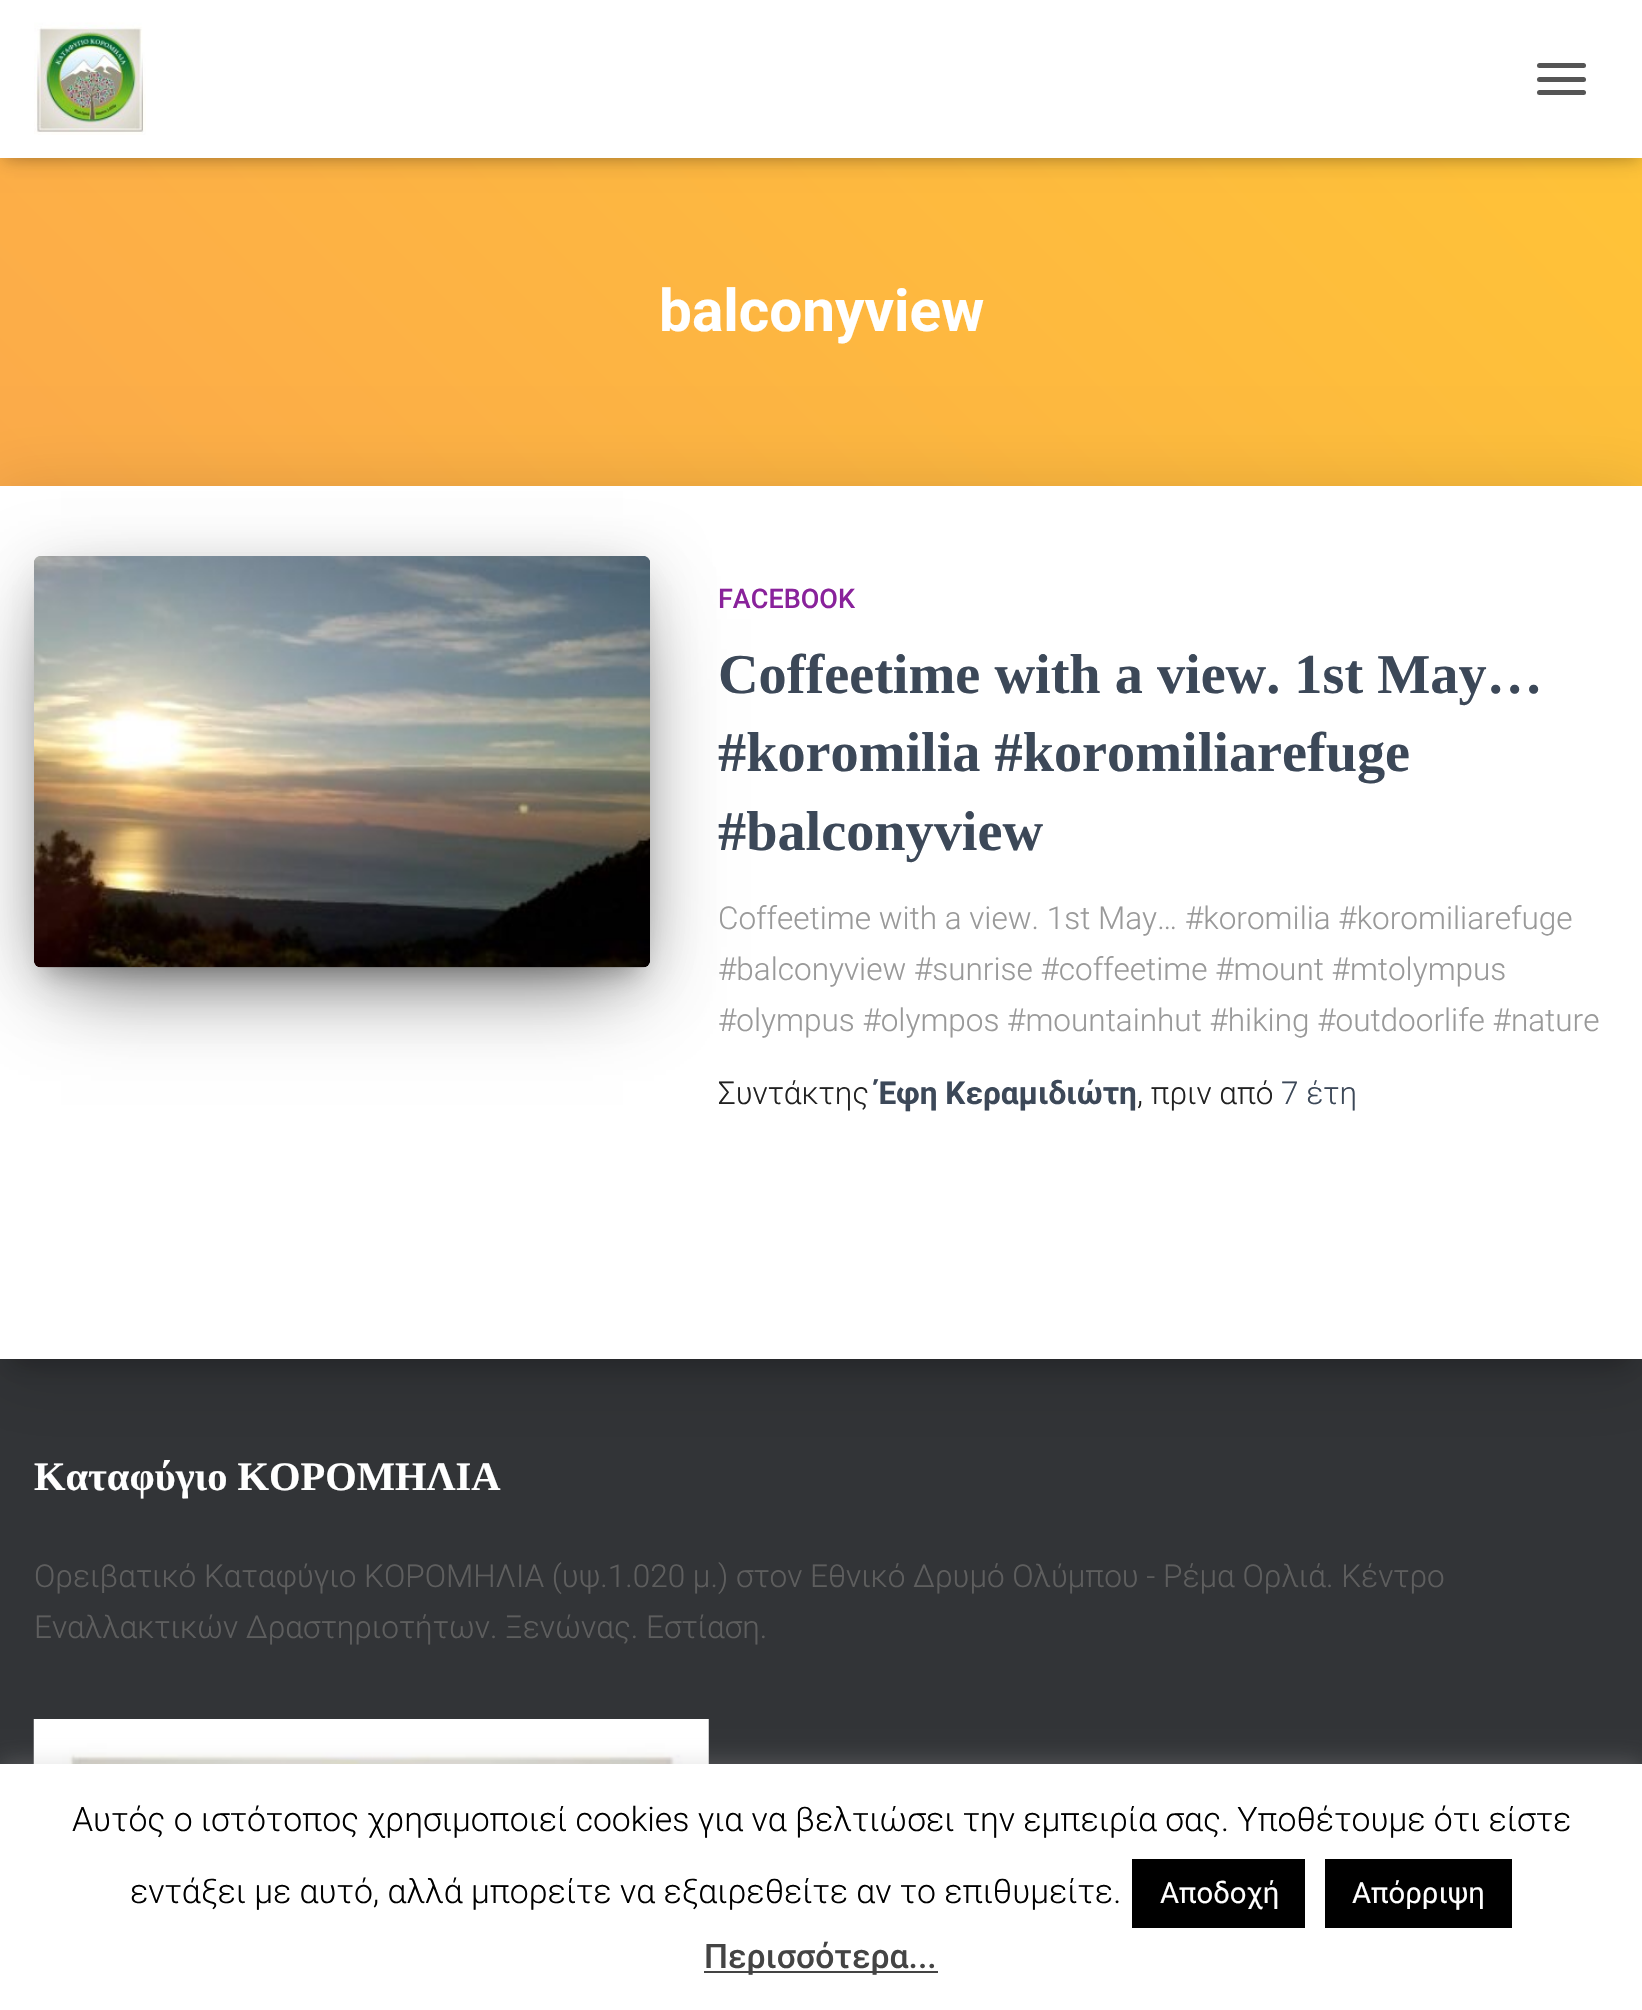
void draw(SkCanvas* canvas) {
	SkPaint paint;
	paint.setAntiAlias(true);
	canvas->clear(0xff323437);
	{
		const SkColor colors[] = {0xfffca94b, 0xffffc536};
		const float stops[] = {0, 1};
		const SkPoint ends[] = {{255, 876}, {1387, -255}};
		paint.setShader(SkGradientShader::MakeLinear(ends, colors, stops, 2, SkTileMode::kClamp));
		paint.setAlpha(255);
	}
	canvas->drawRect(SkRect::MakeXYWH(0, 158, 1642, 328), paint);
	paint.setShader(nullptr);
	paint.setColor(0x1a000000);
	paint.setMaskFilter(SkMaskFilter::MakeBlur(kNormal_SkBlurStyle, 5.5));
	canvas->drawRect(SkRect::MakeXYWH(5, 14, 1633, 148), paint);
	paint.setMaskFilter(nullptr);
	paint.setColor(0x1f000000);
	paint.setMaskFilter(SkMaskFilter::MakeBlur(kNormal_SkBlurStyle, 11));
	canvas->drawRect(SkRect::MakeXYWH(0, 2, 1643, 158), paint);
	paint.setMaskFilter(nullptr);
	paint.setColor(0x6b000000);
	paint.setMaskFilter(SkMaskFilter::MakeBlur(kNormal_SkBlurStyle, 11));
	canvas->drawRect(SkRect::MakeXYWH(14, 16, 1615, 130), paint);
	paint.setMaskFilter(nullptr);
	paint.setColor(0xffffffff);
	canvas->drawRect(SkRect::MakeXYWH(0, 0, 1642, 158), paint);
	canvas->drawImageRect(SkImages::DeferredFromEncodedData(SkData::MakeFromFileName("img1.png")), SkRect::MakeXYWH(34, 22, 112, 113), SkSamplingOptions());
	paint.setColor(0xff555555);
	canvas->drawRoundRect(SkRect::MakeXYWH(1537, 63, 49, 5), 2.5, 2.5, paint);
	canvas->drawRoundRect(SkRect::MakeXYWH(1537, 77, 49, 5), 2.5, 2.5, paint);
	canvas->drawRoundRect(SkRect::MakeXYWH(1537, 90, 49, 5), 2.5, 2.5, paint);
	SkFont f1(fontMgr->matchFamilyStyle("Roboto", SkFontStyle::Bold()), 58.5);
	f1.setSubpixel(true);
	paint.setColor(0xffffffff);
	canvas->drawString("balconyview", 659, 331, f1, paint);
	paint.setColor(0x33000000);
	paint.setMaskFilter(SkMaskFilter::MakeBlur(kNormal_SkBlurStyle, 11));
	canvas->drawRect(SkRect::MakeXYWH(11, 515, 1620, 851), paint);
	paint.setMaskFilter(nullptr);
	paint.setColor(0x1f000000);
	paint.setMaskFilter(SkMaskFilter::MakeBlur(kNormal_SkBlurStyle, 34));
	canvas->drawRect(SkRect::MakeXYWH(-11, 488, 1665, 896), paint);
	paint.setMaskFilter(nullptr);
	paint.setColor(0xffffffff);
	canvas->drawRect(SkRect::MakeXYWH(0, 486, 1642, 873), paint);
	paint.setColor(0x33000000);
	paint.setMaskFilter(SkMaskFilter::MakeBlur(kNormal_SkBlurStyle, 11));
	canvas->drawRect(SkRect::MakeXYWH(45, 585, 594, 389), paint);
	paint.setMaskFilter(nullptr);
	paint.setColor(0x1f000000);
	paint.setMaskFilter(SkMaskFilter::MakeBlur(kNormal_SkBlurStyle, 28));
	canvas->drawRoundRect(SkRect::MakeXYWH(34, 565, 616, 412), 7, 7, paint);
	paint.setMaskFilter(nullptr);
	paint.setColor(0x8f000000);
	paint.setMaskFilter(SkMaskFilter::MakeBlur(kNormal_SkBlurStyle, 43));
	canvas->drawRect(SkRect::MakeXYWH(61, 619, 562, 358), paint);
	paint.setMaskFilter(nullptr);
	canvas->drawImageRect(SkImages::DeferredFromEncodedData(SkData::MakeFromFileName("img2.png")), SkRect::MakeXYWH(34, 556, 616, 412), SkSamplingOptions());
	SkFont f2(fontMgr->matchFamilyStyle("Roboto", SkFontStyle(500, SkFontStyle::kNormal_Width, SkFontStyle::kUpright_Slant)), 27);
	f2.setSubpixel(true);
	paint.setColor(0xff89229b);
	canvas->drawString("FACEBOOK", 718, 608, f2, paint);
	SkFont f3(fontMgr->matchFamilyStyle("Liberation Serif", SkFontStyle::Bold()), 56.25);
	f3.setSubpixel(true);
	paint.setColor(0xff3c4858);
	canvas->drawString("Coffeetime with a view. 1st May…", 718, 693, f3, paint);
	canvas->drawString("#koromilia #koromiliarefuge", 718, 771, f3, paint);
	canvas->drawString("#balconyview", 718, 850, f3, paint);
	SkFont f4(fontMgr->matchFamilyStyle("Roboto", SkFontStyle(300, SkFontStyle::kNormal_Width, SkFontStyle::kUpright_Slant)), 31.5);
	f4.setSubpixel(true);
	paint.setColor(0xff999999);
	canvas->drawString("Coffeetime with a view. 1st May… #koromilia #koromiliarefuge", 718, 929, f4, paint);
	canvas->drawString("#balconyview #sunrise #coffeetime #mount #mtolympus", 718, 980, f4, paint);
	canvas->drawString("#olympus #olympos #mountainhut #hiking #outdoorlife #nature", 718, 1031, f4, paint);
	paint.setColor(0xff212121);
	canvas->drawString("Συντάκτης", 718, 1104, f4, paint);
	SkFont f5(fontMgr->matchFamilyStyle("Roboto", SkFontStyle::Bold()), 31.5);
	f5.setSubpixel(true);
	paint.setColor(0xff3c4858);
	canvas->drawString("Έφη Κεραμιδιώτη", 877, 1104, f5, paint);
	paint.setColor(0xff212121);
	canvas->drawString(", πριν από", 1137, 1104, f4, paint);
	paint.setColor(0xff3c4858);
	canvas->drawString("7 έτη", 1281, 1104, f4, paint);
	SkFont f6(fontMgr->matchFamilyStyle("Liberation Serif", SkFontStyle::Bold()), 40.5);
	f6.setSubpixel(true);
	paint.setColor(0xffffffff);
	canvas->drawString("Καταφύγιο ΚΟΡΟΜΗΛΙΑ", 34, 1490, f6, paint);
	paint.setColor(0xff5e5e5e);
	canvas->drawString("Ορειβατικό Καταφύγιο ΚΟΡΟΜΗΛΙΑ (υψ.1.020 μ.) στον Εθνικό Δρυμό Ολύμπου - Ρέμα Ορλιά. Κέντρο", 34, 1587, f4, paint);
	canvas->drawString("Εναλλακτικών Δραστηριοτήτων. Ξενώνας. Εστίαση.", 34, 1638, f4, paint);
	canvas->drawImageRect(SkImages::DeferredFromEncodedData(SkData::MakeFromFileName("img3.png")), SkRect::MakeXYWH(33, 1719, 676, 45), SkSamplingOptions());
	paint.setColor(0x4dacabab);
	paint.setMaskFilter(SkMaskFilter::MakeBlur(kNormal_SkBlurStyle, 11));
	canvas->drawRect(SkRect::MakeXYWH(0, 1762, 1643, 247), paint);
	paint.setMaskFilter(nullptr);
	paint.setColor(0xffffffff);
	canvas->drawRect(SkRect::MakeXYWH(0, 1764, 1642, 246), paint);
	SkFont f7(fontMgr->matchFamilyStyle("Roboto", SkFontStyle(300, SkFontStyle::kNormal_Width, SkFontStyle::kUpright_Slant)), 33.75);
	f7.setSubpixel(true);
	paint.setColor(0xff000000);
	canvas->drawString("Αυτός ο ιστότοπος χρησιμοποιεί cookies για να βελτιώσει την εμπειρία σας. Υποθέτουμε ότι είστε", 72, 1831, f7, paint);
	canvas->drawString("εντάξει με αυτό, αλλά μπορείτε να εξαιρεθείτε αν το επιθυμείτε.", 130, 1903, f7, paint);
	canvas->drawRect(SkRect::MakeXYWH(1132, 1859, 173, 69), paint);
	SkFont f8(fontMgr->matchFamilyStyle("Roboto", SkFontStyle::Normal()), 29.25);
	f8.setSubpixel(true);
	paint.setColor(0xffffffff);
	canvas->drawString("Αποδοχή", 1160, 1903, f8, paint);
	paint.setColor(0xff000000);
	canvas->drawRect(SkRect::MakeXYWH(1325, 1859, 187, 69), paint);
	paint.setColor(0xffffffff);
	canvas->drawString("Απόρριψη", 1352, 1903, f8, paint);
	paint.setColor(0xff444444);
	canvas->drawRect(SkRect::MakeXYWH(704, 1971, 234, 2), paint);
	SkFont f9(fontMgr->matchFamilyStyle("Roboto", SkFontStyle(500, SkFontStyle::kNormal_Width, SkFontStyle::kUpright_Slant)), 33.75);
	f9.setSubpixel(true);
	canvas->drawString("Περισσότερα...", 704, 1968, f9, paint);
}
